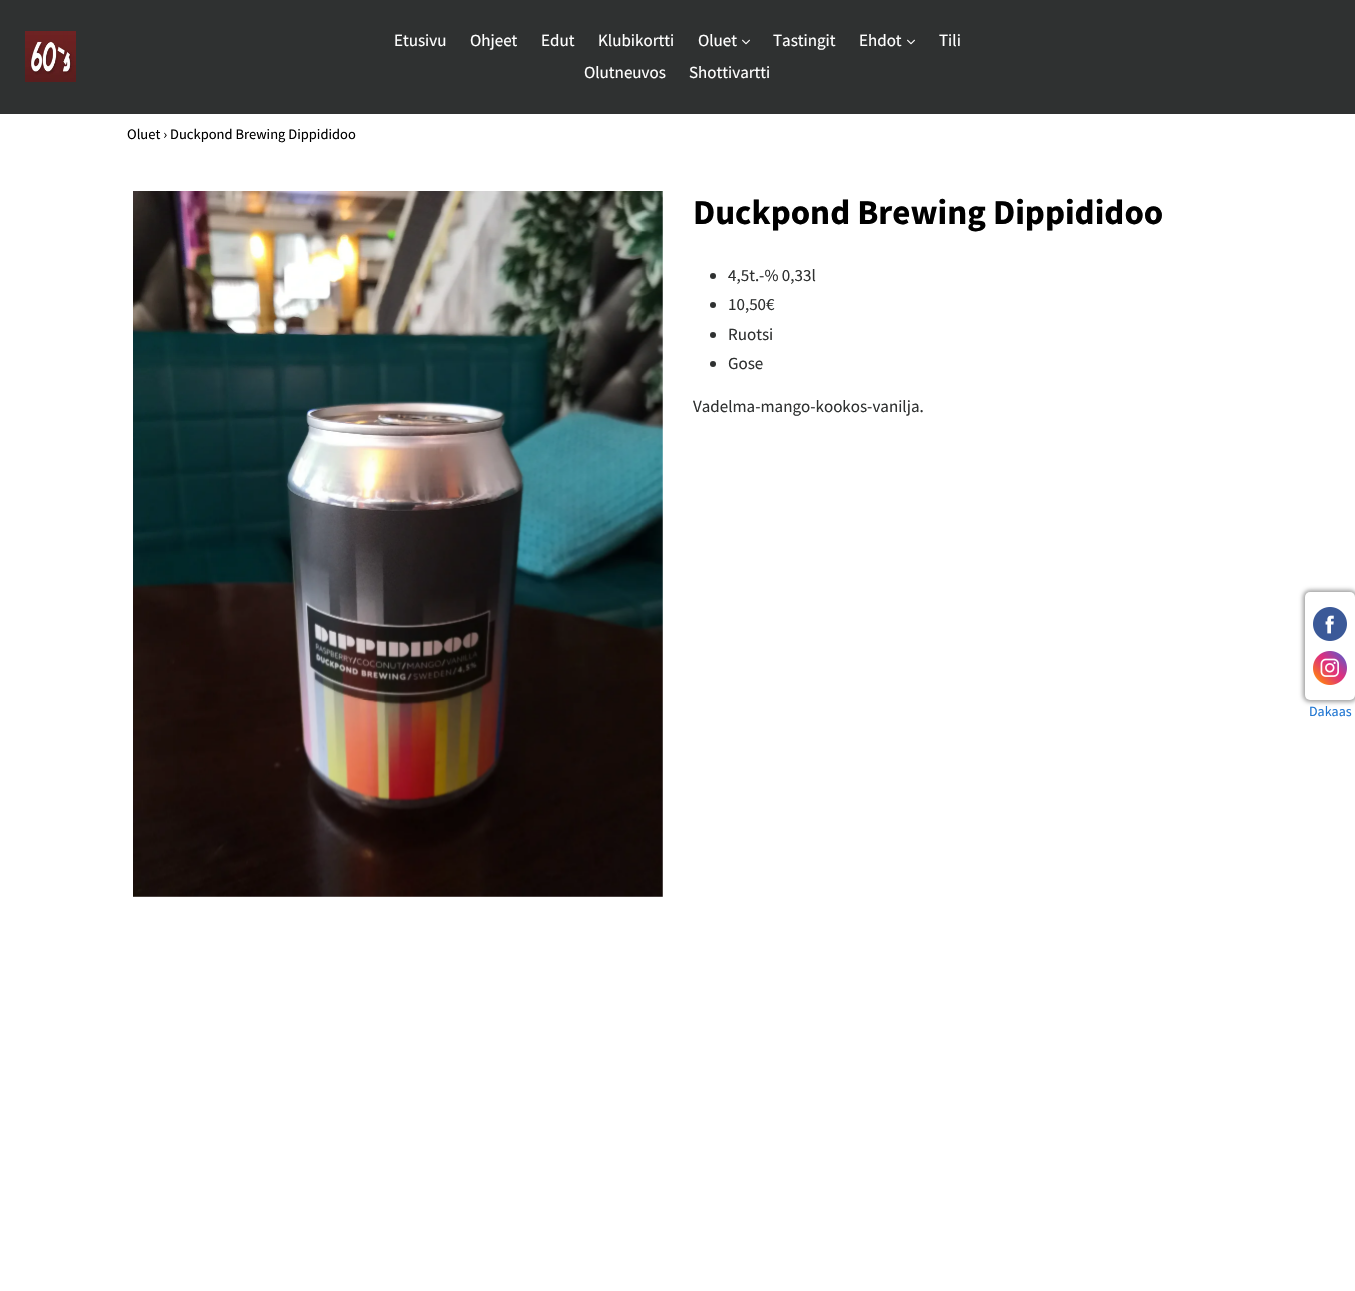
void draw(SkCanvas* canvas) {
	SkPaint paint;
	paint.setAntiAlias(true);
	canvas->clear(0xffffffff);
	paint.setColor(0xff2f3131);
	canvas->drawRect(SkRect::MakeXYWH(0, 0, 1355, 114), paint);
	canvas->drawImageRect(SkImages::DeferredFromEncodedData(SkData::MakeFromFileName("img1.png")), SkRect::MakeXYWH(25, 31, 51, 51), SkSamplingOptions());
	SkFont f1(fontMgr->matchFamilyStyle("Source Sans Pro", SkFontStyle::Normal()), 17);
	f1.setSubpixel(true);
	paint.setColor(0xffffffff);
	canvas->drawString("Etusivu", 394, 46, f1, paint);
	canvas->drawString("Ohjeet", 470, 46, f1, paint);
	canvas->drawString("Edut", 541, 46, f1, paint);
	canvas->drawString("Klubikortti", 598, 46, f1, paint);
	canvas->drawString("Oluet", 698, 46, f1, paint);
	canvas->drawImageRect(SkImages::DeferredFromEncodedData(SkData::MakeFromFileName("img2.png")), SkRect::MakeXYWH(742, 39, 8, 6), SkSamplingOptions());
	canvas->drawString("Tastingit", 773, 46, f1, paint);
	canvas->drawString("Ehdot", 859, 46, f1, paint);
	canvas->drawImageRect(SkImages::DeferredFromEncodedData(SkData::MakeFromFileName("img2.png")), SkRect::MakeXYWH(907, 39, 8, 6), SkSamplingOptions());
	canvas->drawString("Tili", 939, 46, f1, paint);
	canvas->drawString("Olutneuvos", 584, 78, f1, paint);
	canvas->drawString("Shottivartti", 689, 78, f1, paint);
	SkFont f2(fontMgr->matchFamilyStyle("Source Sans Pro", SkFontStyle::Normal()), 14.5);
	f2.setSubpixel(true);
	paint.setColor(0xff000000);
	canvas->drawString("Oluet › Duckpond Brewing Dippididoo", 127, 139, f2, paint);
	canvas->drawImageRect(SkImages::DeferredFromEncodedData(SkData::MakeFromFileName("img3.png")), SkRect::MakeXYWH(133, 191, 530, 706), SkSamplingOptions());
	SkFont f3(fontMgr->matchFamilyStyle("Source Sans Pro", SkFontStyle::Bold()), 35);
	f3.setSubpixel(true);
	canvas->drawString("Duckpond Brewing Dippididoo", 693, 224, f3, paint);
	paint.setColor(0xff2f3131);
	canvas->drawCircle(713, 276, 3, paint);
	canvas->drawString("4,5t.-% 0,33l", 728, 281, f1, paint);
	canvas->drawCircle(713, 305, 3, paint);
	canvas->drawString("10,50€", 728, 310, f1, paint);
	canvas->drawCircle(713, 335, 3, paint);
	canvas->drawString("Ruotsi", 728, 340, f1, paint);
	canvas->drawCircle(713, 364, 3, paint);
	canvas->drawString("Gose", 728, 369, f1, paint);
	canvas->drawString("Vadelma-mango-kookos-vanilja.", 693, 412, f1, paint);
	paint.setColor(0xff9e9e9e);
	paint.setMaskFilter(SkMaskFilter::MakeBlur(kNormal_SkBlurStyle, 2));
	canvas->drawRoundRect(SkRect::MakeXYWH(1303, 590, 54, 112), 7, 7, paint);
	paint.setMaskFilter(nullptr);
	paint.setColor(0xffffffff);
	canvas->drawRoundRect(SkRect::MakeXYWH(1305, 592, 50, 108), 5, 5, paint);
	canvas->drawImageRect(SkImages::DeferredFromEncodedData(SkData::MakeFromFileName("img4.png")), SkRect::MakeXYWH(1313, 607, 34, 34), SkSamplingOptions());
	canvas->drawImageRect(SkImages::DeferredFromEncodedData(SkData::MakeFromFileName("img5.png")), SkRect::MakeXYWH(1313, 651, 34, 34), SkSamplingOptions());
	SkFont f4(fontMgr->matchFamilyStyle("Source Sans Pro", SkFontStyle::Normal()), 14);
	f4.setSubpixel(true);
	paint.setColor(0xff2076d2);
	canvas->drawString("Dakaas", 1309, 716, f4, paint);
}
